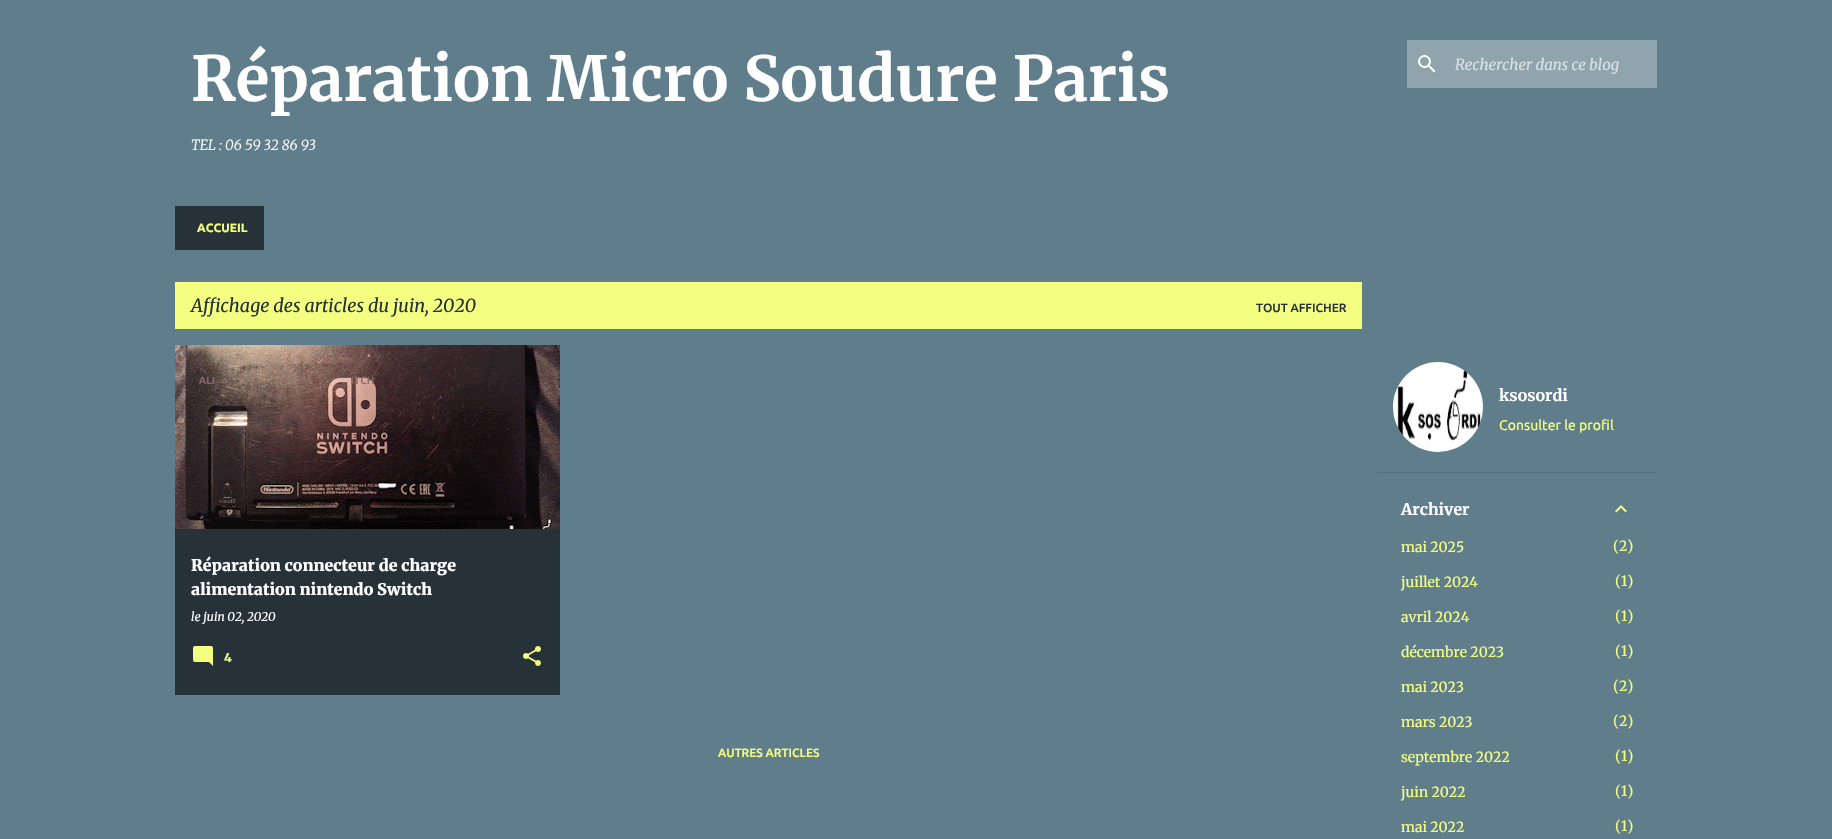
void draw(SkCanvas* canvas) {
	SkPaint paint;
	paint.setAntiAlias(true);
	canvas->clear(0xff607d8b);
	SkFont f1(fontMgr->matchFamilyStyle("Merriweather", SkFontStyle::Bold()), 62);
	f1.setSubpixel(true);
	paint.setColor(0xffffffff);
	canvas->drawString("Réparation Micro Soudure Paris", 191, 101, f1, paint);
	SkFont f2(fontMgr->matchFamilyStyle("Merriweather", SkFontStyle(300, SkFontStyle::kNormal_Width, SkFontStyle::kItalic_Slant)), 14);
	f2.setSubpixel(true);
	canvas->drawString("TEL : 06 59 32 86 93", 191, 150, f2, paint);
	paint.setColor(0xff90a4ae);
	canvas->drawRect(SkRect::MakeXYWH(1407, 40, 250, 48), paint);
	canvas->drawImageRect(SkImages::DeferredFromEncodedData(SkData::MakeFromFileName("img1.png")), SkRect::MakeXYWH(1418, 55, 18, 18), SkSamplingOptions());
	SkFont f3(fontMgr->matchFamilyStyle("Merriweather", SkFontStyle::Italic()), 15);
	f3.setSubpixel(true);
	paint.setColor(0xffd9e0e3);
	canvas->drawString("Rechercher dans ce blog", 1455, 70, f3, paint);
	paint.setColor(0xff263238);
	canvas->drawRect(SkRect::MakeXYWH(175, 206, 89, 44), paint);
	SkFont f4(fontMgr->matchFamilyStyle("Ubuntu", SkFontStyle::Bold()), 12);
	f4.setSubpixel(true);
	paint.setColor(0xfff4ff81);
	canvas->drawString("ACCUEIL", 197, 232, f4, paint);
	canvas->drawRect(SkRect::MakeXYWH(175, 282, 1187, 47), paint);
	SkFont f5(fontMgr->matchFamilyStyle("Merriweather", SkFontStyle::Italic()), 18);
	f5.setSubpixel(true);
	paint.setColor(0xff263238);
	canvas->drawString("Affichage des articles du juin, 2020", 191, 312, f5, paint);
	SkFont f6(fontMgr->matchFamilyStyle("Ubuntu", SkFontStyle(500, SkFontStyle::kNormal_Width, SkFontStyle::kUpright_Slant)), 12);
	f6.setSubpixel(true);
	canvas->drawString("TOUT AFFICHER", 1256, 312, f6, paint);
	canvas->drawRect(SkRect::MakeXYWH(175, 529, 385, 166), paint);
	canvas->drawImageRect(SkImages::DeferredFromEncodedData(SkData::MakeFromFileName("img2.png")), SkRect::MakeXYWH(175, 345, 385, 184), SkSamplingOptions());
	SkFont f7(fontMgr->matchFamilyStyle("Ubuntu", SkFontStyle(500, SkFontStyle::kNormal_Width, SkFontStyle::kUpright_Slant)), 10.5);
	f7.setSubpixel(true);
	paint.setColor(0xff876c62);
	canvas->drawString("ALI", 199, 384, f7, paint);
	canvas->drawString("ITCH", 351, 384, f7, paint);
	SkFont f8(fontMgr->matchFamilyStyle("Merriweather", SkFontStyle::Italic()), 12);
	f8.setSubpixel(true);
	paint.setColor(0xffffffff);
	canvas->drawString("le juin 02, 2020", 191, 621, f8, paint);
	SkFont f9(fontMgr->matchFamilyStyle("Merriweather", SkFontStyle(900, SkFontStyle::kNormal_Width, SkFontStyle::kUpright_Slant)), 16);
	f9.setSubpixel(true);
	canvas->drawString("Réparation connecteur de charge", 191, 571, f9, paint);
	canvas->drawString("alimentation nintendo Switch", 191, 595, f9, paint);
	canvas->drawImageRect(SkImages::DeferredFromEncodedData(SkData::MakeFromFileName("img3.png")), SkRect::MakeXYWH(193, 646, 20, 20), SkSamplingOptions());
	SkFont f10(fontMgr->matchFamilyStyle("Merriweather", SkFontStyle(900, SkFontStyle::kNormal_Width, SkFontStyle::kUpright_Slant)), 12);
	f10.setSubpixel(true);
	paint.setColor(0xfff4ff81);
	canvas->drawString("4", 224, 662, f10, paint);
	canvas->drawImageRect(SkImages::DeferredFromEncodedData(SkData::MakeFromFileName("img4.png")), SkRect::MakeXYWH(523, 646, 18, 20), SkSamplingOptions());
	canvas->drawString("AUTRES ARTICLES", 718, 757, f6, paint);
	canvas->drawImageRect(SkImages::DeferredFromEncodedData(SkData::MakeFromFileName("img5.png")), SkRect::MakeXYWH(1393, 362, 90, 90), SkSamplingOptions());
	SkFont f11(fontMgr->matchFamilyStyle("Merriweather", SkFontStyle::Bold()), 16);
	f11.setSubpixel(true);
	paint.setColor(0xffffffff);
	canvas->drawString("ksosordi", 1499, 401, f11, paint);
	SkFont f12(fontMgr->matchFamilyStyle("Ubuntu", SkFontStyle::Normal()), 14);
	f12.setSubpixel(true);
	paint.setColor(0xfff4ff81);
	canvas->drawString("Consulter le profil", 1499, 430, f12, paint);
	paint.setColor(0xff546e7a);
	canvas->drawRect(SkRect::MakeXYWH(1377, 472, 280, 1), paint);
	paint.setColor(0xffffffff);
	canvas->drawString("Archiver", 1401, 515, f11, paint);
	canvas->drawImageRect(SkImages::DeferredFromEncodedData(SkData::MakeFromFileName("img6.png")), SkRect::MakeXYWH(1615, 505, 12, 8), SkSamplingOptions());
	SkFont f13(fontMgr->matchFamilyStyle("Merriweather", SkFontStyle::Normal()), 14);
	f13.setSubpixel(true);
	paint.setColor(0xfff4ff81);
	canvas->drawString("mai 2025", 1401, 552, f13, paint);
	canvas->drawString("(2)", 1613, 551, f13, paint);
	canvas->drawString("juillet 2024", 1401, 587, f13, paint);
	canvas->drawString("(1)", 1615, 586, f13, paint);
	canvas->drawString("avril 2024", 1401, 622, f13, paint);
	canvas->drawString("(1)", 1615, 621, f13, paint);
	canvas->drawString("décembre 2023", 1401, 657, f13, paint);
	canvas->drawString("(1)", 1615, 656, f13, paint);
	canvas->drawString("mai 2023", 1401, 692, f13, paint);
	canvas->drawString("(2)", 1613, 691, f13, paint);
	canvas->drawString("mars 2023", 1401, 727, f13, paint);
	canvas->drawString("(2)", 1613, 726, f13, paint);
	canvas->drawString("septembre 2022", 1401, 762, f13, paint);
	canvas->drawString("(1)", 1615, 761, f13, paint);
	canvas->drawString("juin 2022", 1401, 797, f13, paint);
	canvas->drawString("(1)", 1615, 796, f13, paint);
	canvas->drawString("mai 2022", 1401, 832, f13, paint);
	canvas->drawString("(1)", 1615, 831, f13, paint);
}
